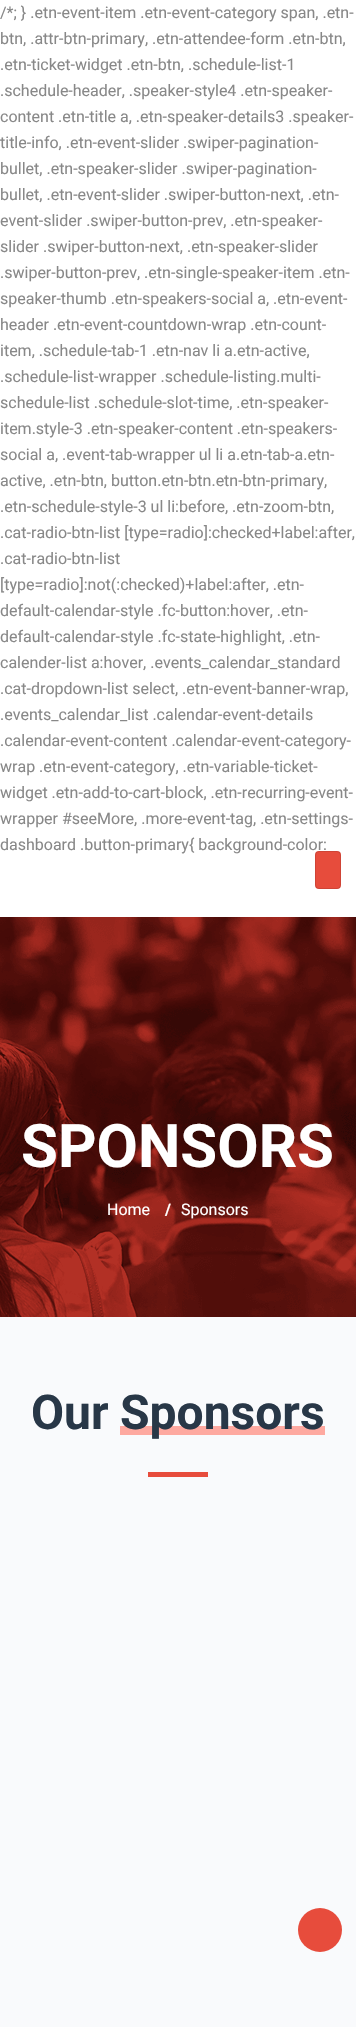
void draw(SkCanvas* canvas) {
	SkPaint paint;
	paint.setAntiAlias(true);
	canvas->clear(0xffffffff);
	SkFont f1(fontMgr->matchFamilyStyle("Roboto", SkFontStyle::Normal()), 16);
	f1.setSubpixel(true);
	paint.setColor(0xff888888);
	canvas->drawString("/*; } .etn-event-item .etn-event-category span, .etn-", 0, 18, f1, paint);
	canvas->drawString("btn, .attr-btn-primary, .etn-attendee-form .etn-btn,", 0, 44, f1, paint);
	canvas->drawString(".etn-ticket-widget .etn-btn, .schedule-list-1", 0, 70, f1, paint);
	canvas->drawString(".schedule-header, .speaker-style4 .etn-speaker-", 0, 96, f1, paint);
	canvas->drawString("content .etn-title a, .etn-speaker-details3 .speaker-", 0, 122, f1, paint);
	canvas->drawString("title-info, .etn-event-slider .swiper-pagination-", 0, 148, f1, paint);
	canvas->drawString("bullet, .etn-speaker-slider .swiper-pagination-", 0, 174, f1, paint);
	canvas->drawString("bullet, .etn-event-slider .swiper-button-next, .etn-", 0, 200, f1, paint);
	canvas->drawString("event-slider .swiper-button-prev, .etn-speaker-", 0, 226, f1, paint);
	canvas->drawString("slider .swiper-button-next, .etn-speaker-slider", 0, 252, f1, paint);
	canvas->drawString(".swiper-button-prev, .etn-single-speaker-item .etn-", 0, 278, f1, paint);
	canvas->drawString("speaker-thumb .etn-speakers-social a, .etn-event-", 0, 304, f1, paint);
	canvas->drawString("header .etn-event-countdown-wrap .etn-count-", 0, 330, f1, paint);
	canvas->drawString("item, .schedule-tab-1 .etn-nav li a.etn-active,", 0, 356, f1, paint);
	canvas->drawString(".schedule-list-wrapper .schedule-listing.multi-", 0, 382, f1, paint);
	canvas->drawString("schedule-list .schedule-slot-time, .etn-speaker-", 0, 408, f1, paint);
	canvas->drawString("item.style-3 .etn-speaker-content .etn-speakers-", 0, 434, f1, paint);
	canvas->drawString("social a, .event-tab-wrapper ul li a.etn-tab-a.etn-", 0, 460, f1, paint);
	canvas->drawString("active, .etn-btn, button.etn-btn.etn-btn-primary,", 0, 486, f1, paint);
	canvas->drawString(".etn-schedule-style-3 ul li:before, .etn-zoom-btn,", 0, 512, f1, paint);
	canvas->drawString(".cat-radio-btn-list [type=radio]:checked+label:after,", 0, 538, f1, paint);
	canvas->drawString(".cat-radio-btn-list", 0, 564, f1, paint);
	canvas->drawString("[type=radio]:not(:checked)+label:after, .etn-", 0, 590, f1, paint);
	canvas->drawString("default-calendar-style .fc-button:hover, .etn-", 0, 616, f1, paint);
	canvas->drawString("default-calendar-style .fc-state-highlight, .etn-", 0, 642, f1, paint);
	canvas->drawString("calender-list a:hover, .events_calendar_standard", 0, 668, f1, paint);
	canvas->drawString(".cat-dropdown-list select, .etn-event-banner-wrap,", 0, 694, f1, paint);
	canvas->drawString(".events_calendar_list .calendar-event-details", 0, 720, f1, paint);
	canvas->drawString(".calendar-event-content .calendar-event-category-", 0, 746, f1, paint);
	canvas->drawString("wrap .etn-event-category, .etn-variable-ticket-", 0, 772, f1, paint);
	canvas->drawString("widget .etn-add-to-cart-block, .etn-recurring-event-", 0, 798, f1, paint);
	canvas->drawString("wrapper #seeMore, .more-event-tag, .etn-settings-", 0, 824, f1, paint);
	canvas->drawString("dashboard .button-primary{ background-color:", 0, 850, f1, paint);
	paint.setColor(0xffe74c3c);
	canvas->drawRoundRect(SkRect::MakeXYWH(315, 851, 26, 38), 4, 4, paint);
	paint.setStroke(true);
	paint.setStrokeWidth(1);
	paint.setColor(0x1a000000);
	canvas->drawRoundRect(SkRect::MakeXYWH(315.5, 851.5, 25, 37), 3.5, 3.5, paint);
	canvas->drawImageRect(SkImages::DeferredFromEncodedData(SkData::MakeFromFileName("img1.png")), SkRect::MakeXYWH(0, 917, 356, 400), SkSamplingOptions());
	SkFont f2(fontMgr->matchFamilyStyle("Roboto", SkFontStyle::Bold()), 60);
	f2.setSubpixel(true);
	paint.setStroke(false);
	paint.setColor(0xffffffff);
	canvas->drawString("SPONSORS", 21, 1167, f2, paint);
	canvas->drawString("Home", 107, 1215, f1, paint);
	SkFont f3(fontMgr->matchFamilyStyle("Roboto", SkFontStyle::Bold()), 16);
	f3.setSubpixel(true);
	canvas->drawString("/", 165, 1215, f3, paint);
	canvas->drawString("Sponsors", 181, 1215, f1, paint);
	paint.setColor(0xfff9fafc);
	canvas->drawRect(SkRect::MakeXYWH(0, 1317, 356, 710), paint);
	SkFont f4(fontMgr->matchFamilyStyle("Roboto", SkFontStyle::Bold()), 48);
	f4.setSubpixel(true);
	paint.setColor(0xff283747);
	canvas->drawString("Our", 31, 1429, f4, paint);
	paint.setColor(0xfffea9a0);
	canvas->drawRect(SkRect::MakeXYWH(120, 1426, 205, 9), paint);
	paint.setColor(0xff283747);
	canvas->drawString("Sponsors", 120, 1429, f4, paint);
	paint.setColor(0xffe74c3c);
	canvas->drawRect(SkRect::MakeXYWH(148, 1472, 60, 5), paint);
	canvas->drawCircle(320, 1930, 22, paint);
}
